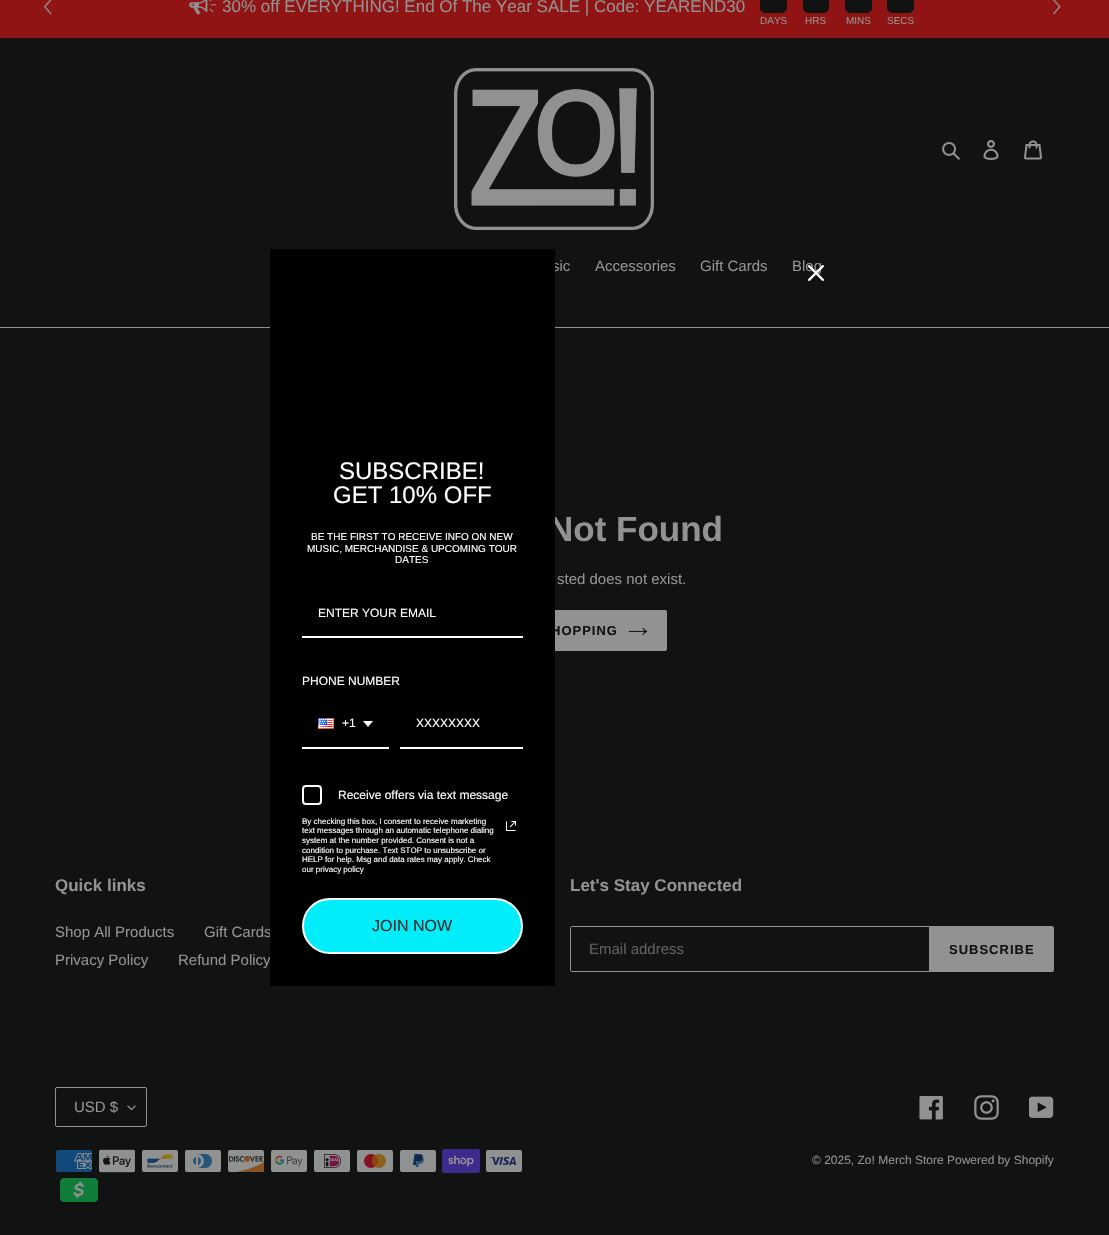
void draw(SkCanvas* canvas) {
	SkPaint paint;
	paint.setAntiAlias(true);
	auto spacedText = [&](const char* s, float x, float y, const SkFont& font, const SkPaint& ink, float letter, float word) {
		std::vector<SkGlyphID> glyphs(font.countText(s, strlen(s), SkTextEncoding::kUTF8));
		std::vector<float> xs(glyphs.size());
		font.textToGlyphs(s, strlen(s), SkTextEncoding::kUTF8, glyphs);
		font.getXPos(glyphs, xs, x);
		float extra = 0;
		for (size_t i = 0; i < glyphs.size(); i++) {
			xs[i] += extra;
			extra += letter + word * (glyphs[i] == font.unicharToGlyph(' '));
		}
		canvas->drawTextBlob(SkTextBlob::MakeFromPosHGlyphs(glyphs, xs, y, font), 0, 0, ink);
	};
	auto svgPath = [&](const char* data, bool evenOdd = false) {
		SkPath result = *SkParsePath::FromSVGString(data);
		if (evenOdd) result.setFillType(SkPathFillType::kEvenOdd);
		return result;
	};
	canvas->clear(0xff111212);
	paint.setColor(0xff911414);
	canvas->drawRect(SkRect::MakeXYWH(0, 0, 1109, 38), paint);
	canvas->drawImageRect(SkImages::DeferredFromEncodedData(SkData::MakeFromFileName("img1.png")), SkRect::MakeXYWH(44, 0, 8, 15), SkSamplingOptions());
	canvas->drawImageRect(SkImages::DeferredFromEncodedData(SkData::MakeFromFileName("img2.png")), SkRect::MakeXYWH(189, 0, 27, 15), SkSamplingOptions());
	SkFont f1(fontMgr->matchFamilyStyle("Liberation Sans", SkFontStyle::Normal()), 17);
	f1.setSubpixel(true);
	paint.setColor(0xff919292);
	canvas->drawString("30% off EVERYTHING! End Of The Year SALE | Code: YEAREND30", 222, 12, f1, paint);
	paint.setColor(0xff111212);
	canvas->drawRoundRect(SkRect::MakeXYWH(760.5, -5.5, 26, 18), 4.5, 4.5, paint);
	paint.setStroke(true);
	paint.setStrokeWidth(1);
	canvas->drawRoundRect(SkRect::MakeXYWH(760.5, -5.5, 26, 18), 4.5, 4.5, paint);
	SkFont f2(fontMgr->matchFamilyStyle("Liberation Sans", SkFontStyle::Normal()), 10);
	f2.setSubpixel(true);
	paint.setStroke(false);
	paint.setColor(0xff919292);
	canvas->drawString("DAYS", 760, 24, f2, paint);
	paint.setColor(0xff111212);
	canvas->drawRoundRect(SkRect::MakeXYWH(803.5, -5.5, 25, 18), 4.5, 4.5, paint);
	paint.setStroke(true);
	canvas->drawRoundRect(SkRect::MakeXYWH(803.5, -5.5, 25, 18), 4.5, 4.5, paint);
	paint.setStroke(false);
	paint.setColor(0xff919292);
	canvas->drawString("HRS", 805, 24, f2, paint);
	paint.setColor(0xff111212);
	canvas->drawRoundRect(SkRect::MakeXYWH(845.5, -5.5, 26, 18), 4.5, 4.5, paint);
	paint.setStroke(true);
	canvas->drawRoundRect(SkRect::MakeXYWH(845.5, -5.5, 26, 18), 4.5, 4.5, paint);
	paint.setStroke(false);
	paint.setColor(0xff919292);
	canvas->drawString("MINS", 846, 24, f2, paint);
	paint.setColor(0xff111212);
	canvas->drawRoundRect(SkRect::MakeXYWH(887.5, -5.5, 26, 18), 4.5, 4.5, paint);
	paint.setStroke(true);
	canvas->drawRoundRect(SkRect::MakeXYWH(887.5, -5.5, 26, 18), 4.5, 4.5, paint);
	paint.setStroke(false);
	paint.setColor(0xff919292);
	canvas->drawString("SECS", 887, 24, f2, paint);
	canvas->drawImageRect(SkImages::DeferredFromEncodedData(SkData::MakeFromFileName("img3.png")), SkRect::MakeXYWH(1053, 0, 8, 15), SkSamplingOptions());
	canvas->drawImageRect(SkImages::DeferredFromEncodedData(SkData::MakeFromFileName("img4.png")), SkRect::MakeXYWH(454, 68, 200, 162), SkSamplingOptions());
	canvas->drawImageRect(SkImages::DeferredFromEncodedData(SkData::MakeFromFileName("img5.png")), SkRect::MakeXYWH(942, 142, 18, 18), SkSamplingOptions());
	canvas->drawImageRect(SkImages::DeferredFromEncodedData(SkData::MakeFromFileName("img6.png")), SkRect::MakeXYWH(983, 140, 16, 20), SkSamplingOptions());
	canvas->drawImageRect(SkImages::DeferredFromEncodedData(SkData::MakeFromFileName("img7.png")), SkRect::MakeXYWH(1024, 140, 18, 20), SkSamplingOptions());
	canvas->drawRect(SkRect::MakeXYWH(0, 327, 1109, 1), paint);
	SkFont f3(fontMgr->matchFamilyStyle("Liberation Sans", SkFontStyle::Normal()), 15);
	f3.setSubpixel(true);
	canvas->drawString("sic", 552, 271, f3, paint);
	canvas->drawString("Accessories", 595, 271, f3, paint);
	canvas->drawString("Gift Cards", 700, 271, f3, paint);
	canvas->drawString("Blog", 792, 271, f3, paint);
	canvas->drawImageRect(SkImages::DeferredFromEncodedData(SkData::MakeFromFileName("img8.png")), SkRect::MakeXYWH(808, 265, 16, 16), SkSamplingOptions());
	SkFont f4(fontMgr->matchFamilyStyle("Liberation Sans", SkFontStyle::Bold()), 35);
	f4.setSubpixel(true);
	canvas->drawString("Not Found", 548, 541, f4, paint);
	canvas->drawRoundRect(SkRect::MakeXYWH(442, 610, 225, 41), 2, 2, paint);
	SkFont f5(fontMgr->matchFamilyStyle("Liberation Sans", SkFontStyle::Bold()), 13);
	f5.setSubpixel(true);
	paint.setColor(0xff111212);
	spacedText("HOPPING", 551, 635, f5, paint, 1, 0);
	paint.setColor(0xff919292);
	canvas->drawString("Gift Cards", 204, 937, f3, paint);
	canvas->drawString("Refund Policy", 178, 965, f3, paint);
	paint.setColor(0xff000000);
	canvas->drawRect(SkRect::MakeXYWH(270, 249, 285, 737), paint);
	SkFont f6(fontMgr->matchFamilyStyle("Liberation Sans", SkFontStyle::Normal()), 24);
	f6.setSubpixel(true);
	paint.setColor(0xffffffff);
	canvas->drawString("SUBSCRIBE!", 339, 479, f6, paint);
	canvas->drawString("GET 10% OFF", 333, 503, f6, paint);
	canvas->drawString("BE THE FIRST TO RECEIVE INFO ON NEW", 311, 540, f2, paint);
	canvas->drawString("MUSIC, MERCHANDISE & UPCOMING TOUR", 307, 552, f2, paint);
	canvas->drawString("DATES", 395, 563, f2, paint);
	canvas->drawRect(SkRect::MakeXYWH(302, 636, 221, 2), paint);
	SkFont f7(fontMgr->matchFamilyStyle("Liberation Sans", SkFontStyle::Normal()), 12);
	f7.setSubpixel(true);
	canvas->drawString("ENTER YOUR EMAIL", 318, 617, f7, paint);
	canvas->drawString("PHONE NUMBER", 302, 685, f7, paint);
	canvas->drawRect(SkRect::MakeXYWH(302, 747, 87, 2), paint);
	canvas->drawImageRect(SkImages::DeferredFromEncodedData(SkData::MakeFromFileName("img9.png")), SkRect::MakeXYWH(318, 718, 16, 11), SkSamplingOptions());
	canvas->drawString("+1", 342, 727, f7, paint);
	canvas->drawPath(svgPath("M363 721H373L368 727Z", true), paint);
	canvas->drawRect(SkRect::MakeXYWH(400, 747, 123, 2), paint);
	canvas->drawString("XXXXXXXX", 416, 727, f7, paint);
	paint.setStroke(true);
	paint.setStrokeWidth(2);
	canvas->drawRoundRect(SkRect::MakeXYWH(303, 786, 18, 18), 3, 3, paint);
	paint.setStroke(false);
	canvas->drawString("Receive offers via text message", 338, 799, f7, paint);
	SkFont f8(fontMgr->matchFamilyStyle("Liberation Sans", SkFontStyle::Normal()), 8);
	f8.setSubpixel(true);
	canvas->drawString("By checking this box, I consent to receive marketing", 302, 824, f8, paint);
	canvas->drawString("text messages through an automatic telephone dialing", 302, 833, f8, paint);
	canvas->drawString("system at the number provided. Consent is not a", 302, 843, f8, paint);
	canvas->drawString("condition to purchase. Text STOP to unsubscribe or", 302, 853, f8, paint);
	canvas->drawString("HELP for help. Msg and data rates may apply. Check", 302, 862, f8, paint);
	canvas->drawString("our privacy policy", 302, 872, f8, paint);
	canvas->drawImageRect(SkImages::DeferredFromEncodedData(SkData::MakeFromFileName("img10.png")), SkRect::MakeXYWH(506, 821, 10, 10), SkSamplingOptions());
	paint.setColor(0xff00eef9);
	canvas->drawRoundRect(SkRect::MakeXYWH(303, 899, 219, 54), 27, 27, paint);
	paint.setStroke(true);
	paint.setColor(0xffffffff);
	canvas->drawRoundRect(SkRect::MakeXYWH(303, 899, 219, 54), 27, 27, paint);
	SkFont f9(fontMgr->matchFamilyStyle("Liberation Sans", SkFontStyle::Normal()), 16);
	f9.setSubpixel(true);
	paint.setStroke(false);
	paint.setColor(0xff292929);
	canvas->drawString("JOIN NOW", 372, 931, f9, paint);
	paint.setColor(0xff919292);
	canvas->drawString("sted does not exist.", 557, 584, f3, paint);
	canvas->drawImageRect(SkImages::DeferredFromEncodedData(SkData::MakeFromFileName("img11.png")), SkRect::MakeXYWH(628, 627, 20, 8), SkSamplingOptions());
	SkFont f10(fontMgr->matchFamilyStyle("Liberation Sans", SkFontStyle::Bold()), 17);
	f10.setSubpixel(true);
	canvas->drawString("Quick links", 55, 891, f10, paint);
	canvas->drawString("Shop All Products", 55, 937, f3, paint);
	canvas->drawString("Privacy Policy", 55, 965, f3, paint);
	canvas->drawString("Let's Stay Connected", 570, 891, f10, paint);
	paint.setStroke(true);
	paint.setStrokeWidth(1);
	canvas->drawPath(svgPath("M572 926.5H929.5V971.5H572C571 971.5 570.5 971 570.5 970V928C570.5 927 571 926.5 572 926.5Z"), paint);
	paint.setStroke(false);
	paint.setColor(0xff5e5f5f);
	canvas->drawString("Email address", 589, 954, f3, paint);
	paint.setColor(0xff919292);
	canvas->drawPath(svgPath("M930 926H1052C1053 926 1054 927 1054 928V970C1054 971 1053 972 1052 972H930Z"), paint);
	paint.setColor(0xff111212);
	spacedText("SUBSCRIBE", 949, 954, f5, paint, 1, 0);
	canvas->drawImageRect(SkImages::DeferredFromEncodedData(SkData::MakeFromFileName("img12.png")), SkRect::MakeXYWH(127, 1105, 9, 6), SkSamplingOptions());
	paint.setStroke(true);
	paint.setColor(0xff919292);
	canvas->drawRoundRect(SkRect::MakeXYWH(55.5, 1087.5, 91, 39), 1.5, 1.5, paint);
	paint.setStroke(false);
	canvas->drawString("USD $", 74, 1112, f3, paint);
	canvas->drawImageRect(SkImages::DeferredFromEncodedData(SkData::MakeFromFileName("img13.png")), SkRect::MakeXYWH(919, 1096, 24, 24), SkSamplingOptions());
	canvas->drawImageRect(SkImages::DeferredFromEncodedData(SkData::MakeFromFileName("img14.png")), SkRect::MakeXYWH(974, 1095, 25, 25), SkSamplingOptions());
	canvas->drawImageRect(SkImages::DeferredFromEncodedData(SkData::MakeFromFileName("img15.png")), SkRect::MakeXYWH(1029, 1096, 25, 22), SkSamplingOptions());
	canvas->drawImageRect(SkImages::DeferredFromEncodedData(SkData::MakeFromFileName("img16.png")), SkRect::MakeXYWH(56, 1150, 36, 22), SkSamplingOptions());
	canvas->drawImageRect(SkImages::DeferredFromEncodedData(SkData::MakeFromFileName("img17.png")), SkRect::MakeXYWH(99, 1149, 36, 24), SkSamplingOptions());
	canvas->drawImageRect(SkImages::DeferredFromEncodedData(SkData::MakeFromFileName("img18.png")), SkRect::MakeXYWH(142, 1150, 36, 22), SkSamplingOptions());
	canvas->drawImageRect(SkImages::DeferredFromEncodedData(SkData::MakeFromFileName("img19.png")), SkRect::MakeXYWH(185, 1150, 36, 22), SkSamplingOptions());
	canvas->drawImageRect(SkImages::DeferredFromEncodedData(SkData::MakeFromFileName("img20.png")), SkRect::MakeXYWH(228, 1150, 37, 22), SkSamplingOptions());
	canvas->drawImageRect(SkImages::DeferredFromEncodedData(SkData::MakeFromFileName("img21.png")), SkRect::MakeXYWH(271, 1150, 36, 22), SkSamplingOptions());
	canvas->drawImageRect(SkImages::DeferredFromEncodedData(SkData::MakeFromFileName("img22.png")), SkRect::MakeXYWH(314, 1150, 36, 22), SkSamplingOptions());
	canvas->drawImageRect(SkImages::DeferredFromEncodedData(SkData::MakeFromFileName("img23.png")), SkRect::MakeXYWH(357, 1150, 36, 22), SkSamplingOptions());
	canvas->drawImageRect(SkImages::DeferredFromEncodedData(SkData::MakeFromFileName("img24.png")), SkRect::MakeXYWH(400, 1150, 36, 22), SkSamplingOptions());
	canvas->drawImageRect(SkImages::DeferredFromEncodedData(SkData::MakeFromFileName("img25.png")), SkRect::MakeXYWH(442, 1149, 38, 24), SkSamplingOptions());
	canvas->drawImageRect(SkImages::DeferredFromEncodedData(SkData::MakeFromFileName("img26.png")), SkRect::MakeXYWH(486, 1150, 36, 22), SkSamplingOptions());
	canvas->drawImageRect(SkImages::DeferredFromEncodedData(SkData::MakeFromFileName("img27.png")), SkRect::MakeXYWH(60, 1178, 38, 24), SkSamplingOptions());
	canvas->drawString("© 2025, Zo! Merch Store", 812, 1164, f7, paint);
	canvas->drawString("Powered by Shopify", 947, 1164, f7, paint);
}
